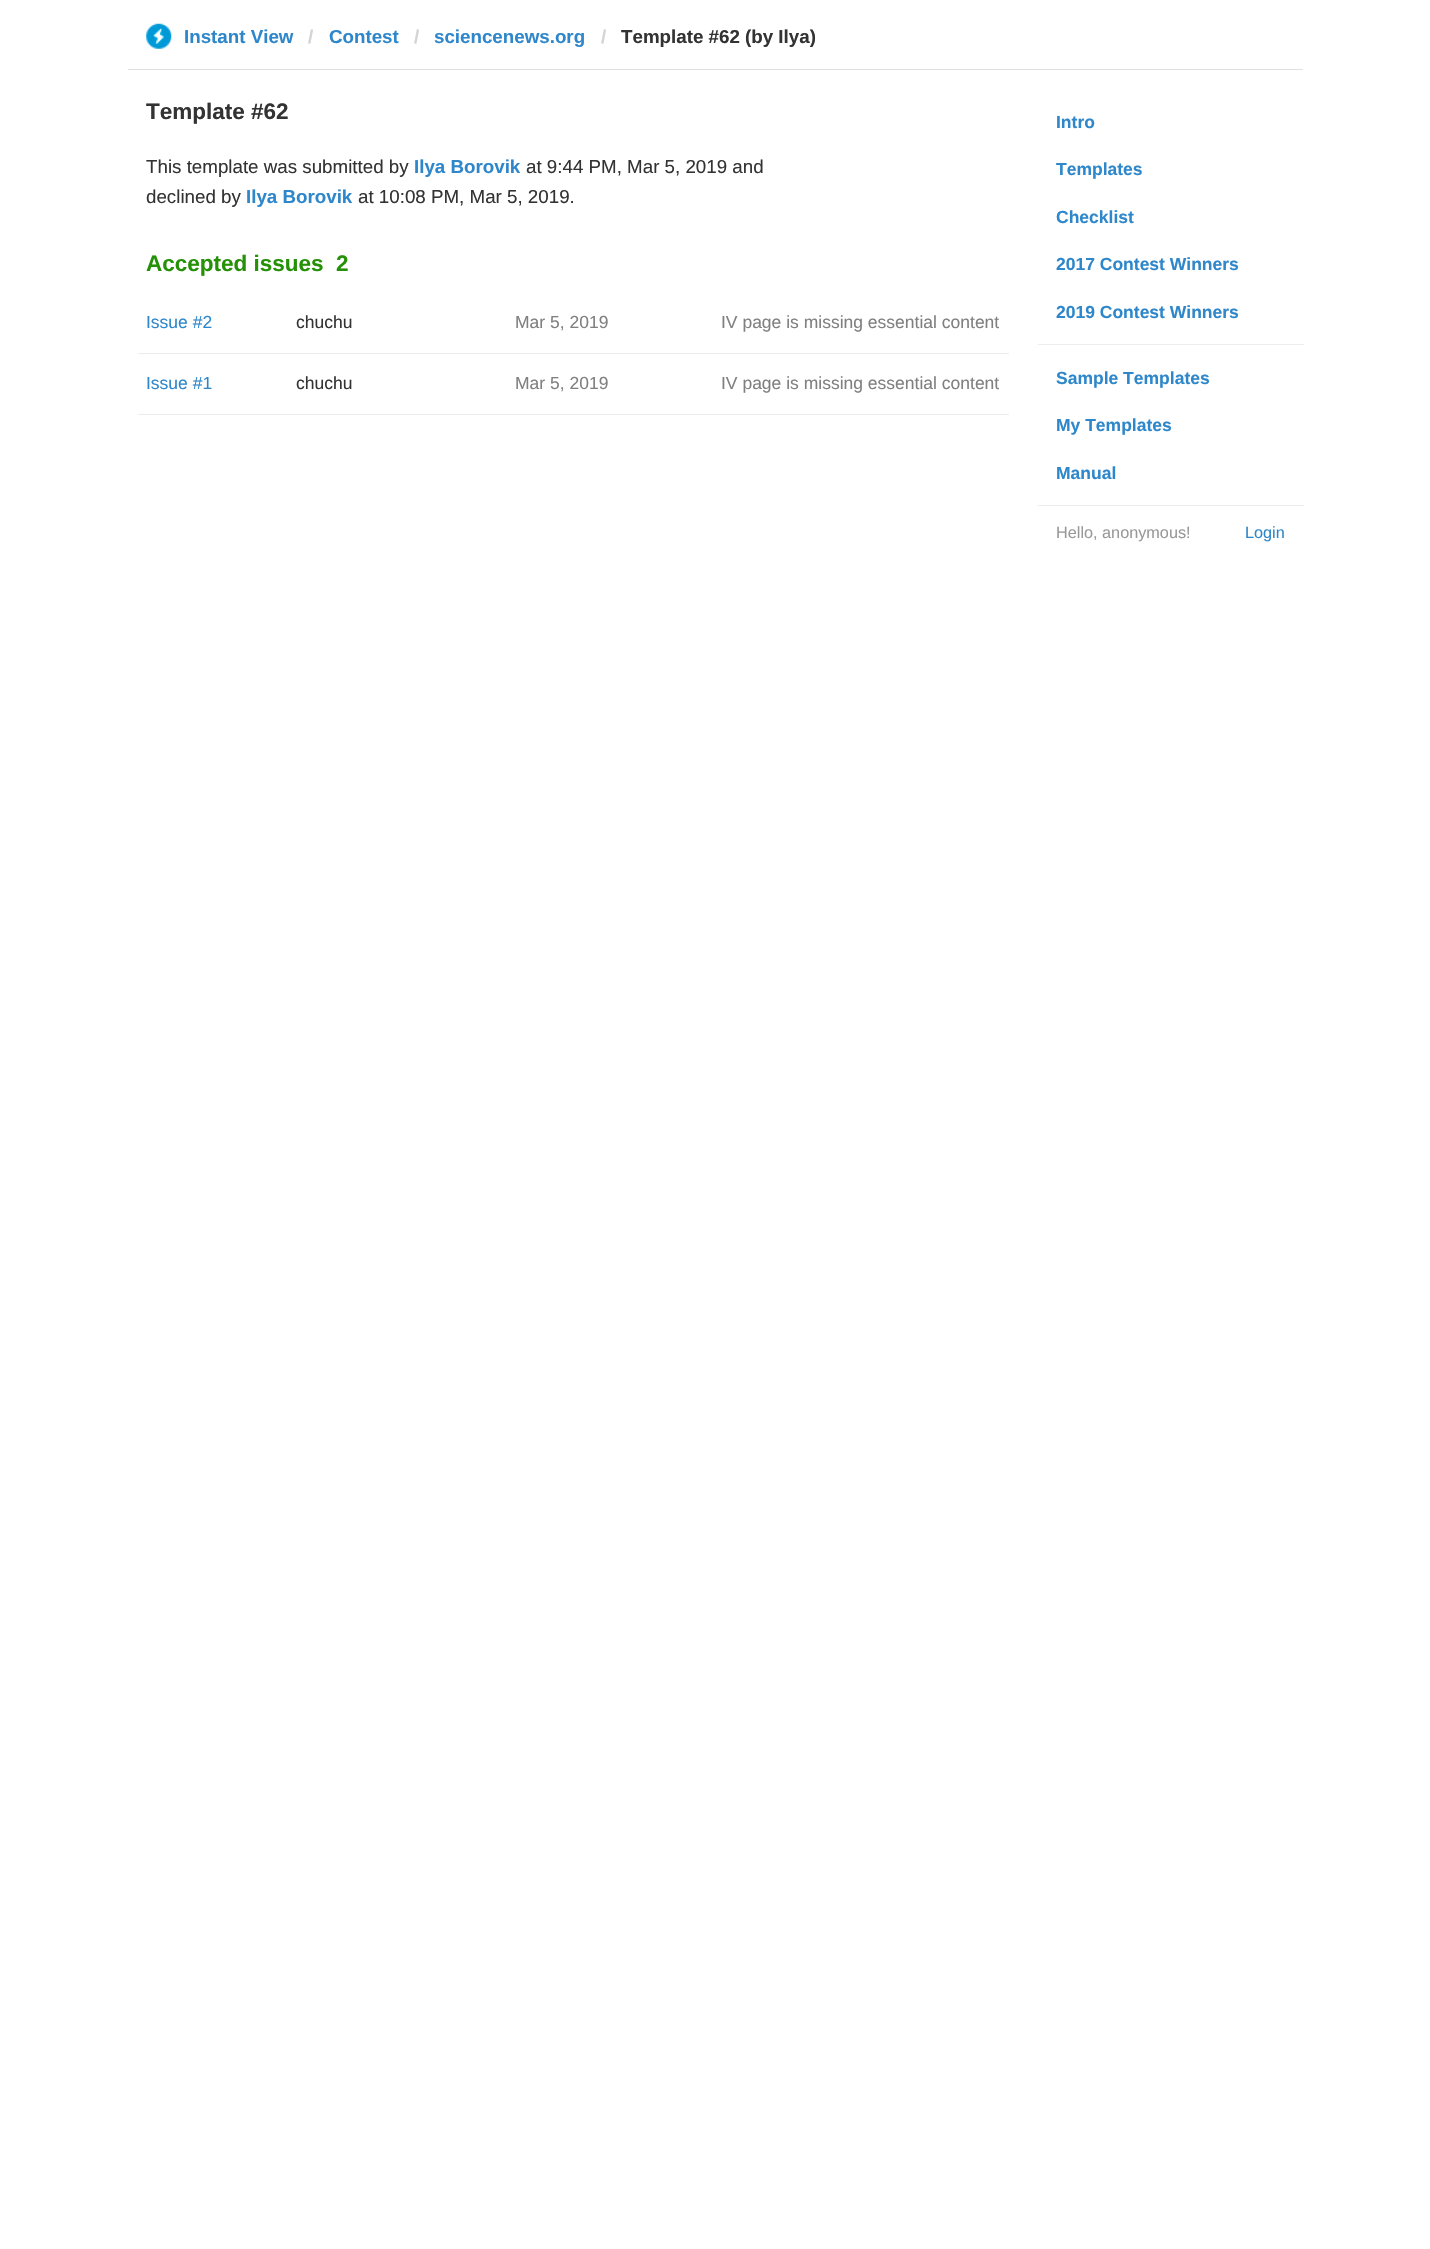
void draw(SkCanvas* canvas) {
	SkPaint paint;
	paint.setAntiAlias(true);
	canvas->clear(0xffffffff);
	paint.setColor(0xffe0e0e0);
	canvas->drawRect(SkRect::MakeXYWH(128, 69, 1175, 1), paint);
	canvas->drawImageRect(SkImages::DeferredFromEncodedData(SkData::MakeFromFileName("img1.png")), SkRect::MakeXYWH(146, 23, 26, 26), SkSamplingOptions());
	SkFont f1(fontMgr->matchFamilyStyle("Liberation Sans", SkFontStyle::Bold()), 18.75);
	f1.setSubpixel(true);
	paint.setColor(0xff2e87ca);
	canvas->drawString("Instant View", 184, 43, f1, paint);
	paint.setColor(0xffd4d4d4);
	canvas->drawString("/", 308, 43, f1, paint);
	paint.setColor(0xff2e87ca);
	canvas->drawString("Contest", 329, 43, f1, paint);
	paint.setColor(0xffd4d4d4);
	canvas->drawString("/", 414, 43, f1, paint);
	paint.setColor(0xff2e87ca);
	canvas->drawString("sciencenews.org", 434, 43, f1, paint);
	paint.setColor(0xffd4d4d4);
	canvas->drawString("/", 601, 43, f1, paint);
	paint.setColor(0xff333333);
	canvas->drawString("Template #62 (by Ilya)", 621, 43, f1, paint);
	SkFont f2(fontMgr->matchFamilyStyle("Liberation Sans", SkFontStyle::Bold()), 22.5);
	f2.setSubpixel(true);
	canvas->drawString("Template #62", 146, 119, f2, paint);
	SkFont f3(fontMgr->matchFamilyStyle("Liberation Sans", SkFontStyle::Normal()), 18.75);
	f3.setSubpixel(true);
	canvas->drawString("This template was submitted by", 146, 173, f3, paint);
	paint.setColor(0xff2e87ca);
	canvas->drawString("Ilya Borovik", 414, 173, f1, paint);
	paint.setColor(0xff333333);
	canvas->drawString("at 9:44 PM, Mar 5, 2019 and", 526, 173, f3, paint);
	canvas->drawString("declined by", 146, 203, f3, paint);
	paint.setColor(0xff2e87ca);
	canvas->drawString("Ilya Borovik", 246, 203, f1, paint);
	paint.setColor(0xff333333);
	canvas->drawString("at 10:08 PM, Mar 5, 2019.", 358, 203, f3, paint);
	paint.setColor(0xff249106);
	canvas->drawString("Accepted issues", 146, 271, f2, paint);
	canvas->drawString("2", 336, 271, f2, paint);
	paint.setColor(0xffededed);
	canvas->drawRect(SkRect::MakeXYWH(138, 353, 871, 1), paint);
	SkFont f4(fontMgr->matchFamilyStyle("Liberation Sans", SkFontStyle::Normal()), 17.5);
	f4.setSubpixel(true);
	paint.setColor(0xff2e87ca);
	canvas->drawString("Issue #2", 146, 328, f4, paint);
	paint.setColor(0xff333333);
	canvas->drawString("chuchu", 296, 328, f4, paint);
	paint.setColor(0xff808080);
	canvas->drawString("Mar 5, 2019", 515, 328, f4, paint);
	canvas->drawString("IV page is missing essential content", 721, 328, f4, paint);
	paint.setColor(0xffededed);
	canvas->drawRect(SkRect::MakeXYWH(138, 414, 871, 1), paint);
	paint.setColor(0xff2e87ca);
	canvas->drawString("Issue #1", 146, 389, f4, paint);
	paint.setColor(0xff333333);
	canvas->drawString("chuchu", 296, 389, f4, paint);
	paint.setColor(0xff808080);
	canvas->drawString("Mar 5, 2019", 515, 389, f4, paint);
	canvas->drawString("IV page is missing essential content", 721, 389, f4, paint);
	SkFont f5(fontMgr->matchFamilyStyle("Liberation Sans", SkFontStyle::Bold()), 17.5);
	f5.setSubpixel(true);
	paint.setColor(0xff2e87ca);
	canvas->drawString("Intro", 1056, 128, f5, paint);
	canvas->drawString("Templates", 1056, 175, f5, paint);
	canvas->drawString("Checklist", 1056, 223, f5, paint);
	canvas->drawString("2017 Contest Winners", 1056, 270, f5, paint);
	canvas->drawString("2019 Contest Winners", 1056, 318, f5, paint);
	paint.setColor(0xffededed);
	canvas->drawRect(SkRect::MakeXYWH(1038, 344, 266, 1), paint);
	paint.setColor(0xff2e87ca);
	canvas->drawString("Sample Templates", 1056, 384, f5, paint);
	canvas->drawString("My Templates", 1056, 431, f5, paint);
	canvas->drawString("Manual", 1056, 479, f5, paint);
	paint.setColor(0xffededed);
	canvas->drawRect(SkRect::MakeXYWH(1038, 505, 266, 1), paint);
	SkFont f6(fontMgr->matchFamilyStyle("Liberation Sans", SkFontStyle::Normal()), 16.25);
	f6.setSubpixel(true);
	paint.setColor(0xff999999);
	canvas->drawString("Hello, anonymous!", 1056, 538, f6, paint);
	paint.setColor(0xff2e87ca);
	canvas->drawString("Login", 1245, 538, f6, paint);
}
